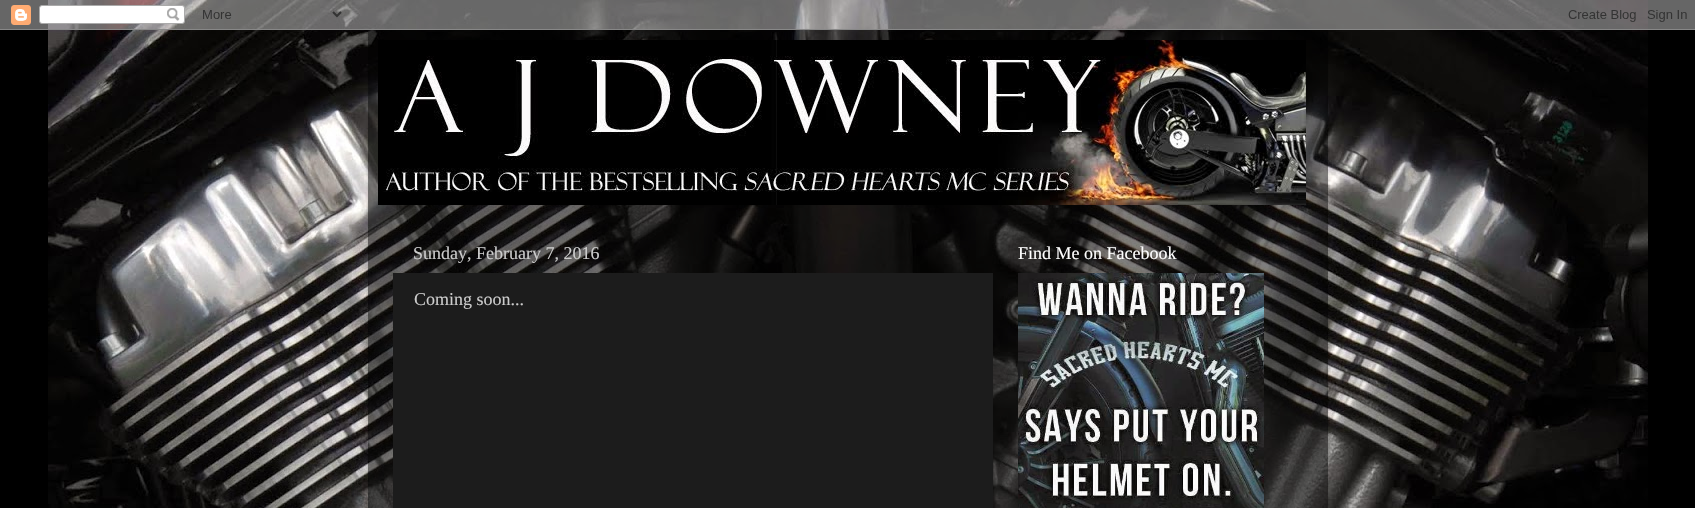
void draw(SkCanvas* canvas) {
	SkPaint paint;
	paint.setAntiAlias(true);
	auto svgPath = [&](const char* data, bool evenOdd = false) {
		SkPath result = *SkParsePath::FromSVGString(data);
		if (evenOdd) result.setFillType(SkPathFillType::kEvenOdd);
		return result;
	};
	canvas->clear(0xff000000);
	canvas->drawImageRect(SkImages::DeferredFromEncodedData(SkData::MakeFromFileName("img1.png")), SkRect::MakeXYWH(48, 0, 1600, 508), SkSamplingOptions());
	canvas->save();
	canvas->clipPath(svgPath("M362 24H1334V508H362ZM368 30H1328V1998H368Z", true), true);
	paint.setColor(0x26000000);
	paint.setMaskFilter(SkMaskFilter::MakeBlur(kNormal_SkBlurStyle, 1.5));
	canvas->drawRect(SkRect::MakeXYWH(368, 30, 960, 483), paint);
	paint.setMaskFilter(nullptr);
	canvas->restore();
	canvas->drawImageRect(SkImages::DeferredFromEncodedData(SkData::MakeFromFileName("img2.png")), SkRect::MakeXYWH(0, 0, 1695, 30), SkSamplingOptions());
	paint.setColor(0x80000000);
	canvas->drawRect(SkRect::MakeXYWH(368, 30, 960, 478), paint);
	canvas->drawImageRect(SkImages::DeferredFromEncodedData(SkData::MakeFromFileName("img3.png")), SkRect::MakeXYWH(378, 40, 928, 165), SkSamplingOptions());
	SkFont f1(fontMgr->matchFamilyStyle("Liberation Serif", SkFontStyle::Normal()), 18);
	f1.setSubpixel(true);
	paint.setColor(0xffcccccc);
	canvas->drawString("Sunday, February 7, 2016", 413, 259, f1, paint);
	paint.setColor(0xff1c1c1c);
	canvas->drawRect(SkRect::MakeXYWH(393, 273, 600, 235), paint);
	paint.setColor(0xffcccccc);
	canvas->drawString("Coming soon...", 414, 305, f1, paint);
	paint.setColor(0xffffffff);
	canvas->drawString("Find Me on Facebook", 1018, 259, f1, paint);
	canvas->drawImageRect(SkImages::DeferredFromEncodedData(SkData::MakeFromFileName("img4.png")), SkRect::MakeXYWH(1018, 273, 246, 235), SkSamplingOptions());
}
